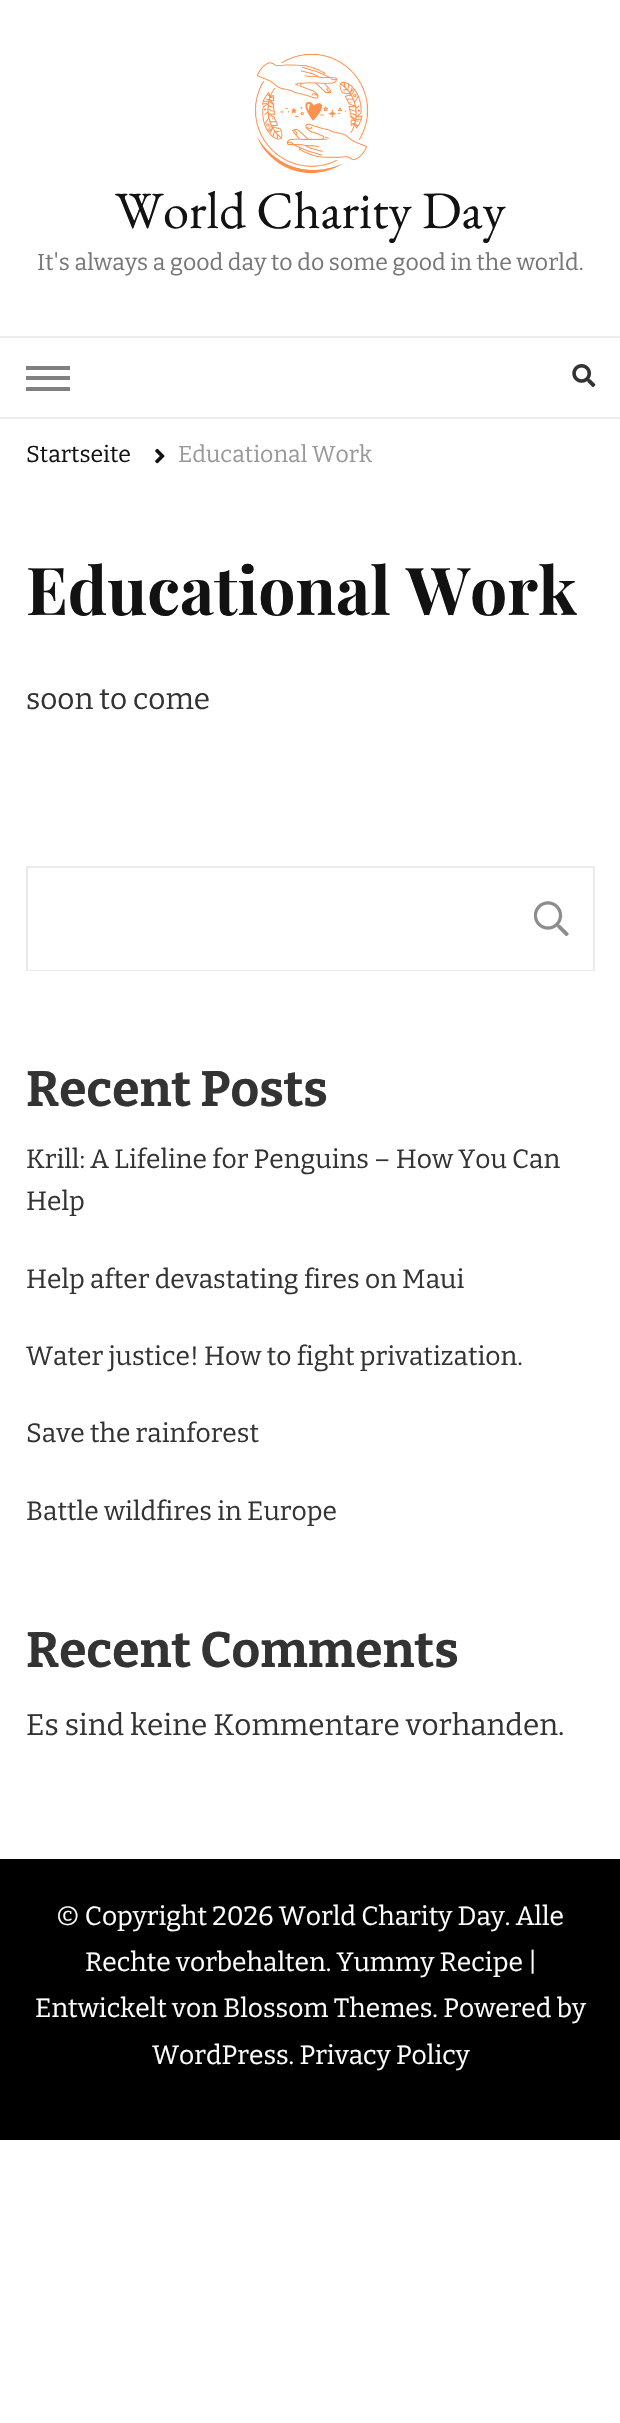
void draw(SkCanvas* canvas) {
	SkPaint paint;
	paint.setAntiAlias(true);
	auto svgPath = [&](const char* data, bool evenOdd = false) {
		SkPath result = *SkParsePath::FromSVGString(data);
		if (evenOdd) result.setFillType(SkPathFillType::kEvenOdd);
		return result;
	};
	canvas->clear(0xffffffff);
	canvas->drawImageRect(SkImages::DeferredFromEncodedData(SkData::MakeFromFileName("img1.png")), SkRect::MakeXYWH(254, 53, 115, 121), SkSamplingOptions());
	SkFont f1(fontMgr->matchFamilyStyle("EB Garamond", SkFontStyle::Normal()), 52.5);
	f1.setSubpixel(true);
	paint.setColor(0xff121212);
	canvas->drawString("World Charity Day", 115, 228, f1, paint);
	SkFont f2(fontMgr->matchFamilyStyle("Bitter", SkFontStyle::Normal()), 23.1);
	f2.setSubpixel(true);
	paint.setColor(0xff777777);
	canvas->drawString("It's always a good day to do some good in the world.", 37, 270, f2, paint);
	paint.setColor(0xffededed);
	canvas->drawRect(SkRect::MakeXYWH(0, 336, 620, 2), paint);
	canvas->drawRect(SkRect::MakeXYWH(0, 417, 620, 2), paint);
	paint.setColor(0xff808080);
	canvas->drawRect(SkRect::MakeXYWH(26, 366, 44, 4), paint);
	canvas->drawRect(SkRect::MakeXYWH(26, 376, 44, 4), paint);
	canvas->drawRect(SkRect::MakeXYWH(26, 387, 44, 4), paint);
	canvas->drawImageRect(SkImages::DeferredFromEncodedData(SkData::MakeFromFileName("img2.png")), SkRect::MakeXYWH(572, 364, 24, 24), SkSamplingOptions());
	paint.setColor(0xff121212);
	canvas->drawString("Startseite", 26, 462, f2, paint);
	canvas->drawImageRect(SkImages::DeferredFromEncodedData(SkData::MakeFromFileName("img3.png")), SkRect::MakeXYWH(155, 448, 10, 16), SkSamplingOptions());
	paint.setColor(0xff999999);
	canvas->drawString("Educational Work", 178, 462, f2, paint);
	SkFont f3(fontMgr->matchFamilyStyle("Playfair Display", SkFontStyle::Bold()), 66);
	f3.setSubpixel(true);
	paint.setColor(0xff121212);
	canvas->drawString("Educational Work", 26, 615, f3, paint);
	SkFont f4(fontMgr->matchFamilyStyle("Bitter", SkFontStyle::Normal()), 29.75);
	f4.setSubpixel(true);
	paint.setColor(0xff333333);
	canvas->drawString("soon to come", 26, 709, f4, paint);
	paint.setColor(0xffebebeb);
	canvas->drawPath(svgPath("M26 866H508V868H28Z"), paint);
	canvas->drawPath(svgPath("M508 971H26L28 970H508Z"), paint);
	paint.setColor(0x1a333333);
	canvas->drawPath(svgPath("M26 971V866L28 868V970Z"), paint);
	paint.setColor(0xffebebeb);
	canvas->drawPath(svgPath("M508 866H595L593 868H508Z"), paint);
	paint.setColor(0x1a333333);
	canvas->drawPath(svgPath("M595 866V971L593 970V868Z"), paint);
	canvas->drawPath(svgPath("M595 971H508V970H593Z"), paint);
	canvas->drawImageRect(SkImages::DeferredFromEncodedData(SkData::MakeFromFileName("img4.png")), SkRect::MakeXYWH(534, 901, 35, 35), SkSamplingOptions());
	SkFont f5(fontMgr->matchFamilyStyle("Bitter", SkFontStyle::Bold()), 49.75);
	f5.setSubpixel(true);
	paint.setColor(0xff333333);
	canvas->drawString("Recent Posts", 26, 1106, f5, paint);
	SkFont f6(fontMgr->matchFamilyStyle("Bitter", SkFontStyle::Normal()), 26.4);
	f6.setSubpixel(true);
	canvas->drawString("Krill: A Lifeline for Penguins – How You Can", 26, 1168, f6, paint);
	canvas->drawString("Help", 26, 1210, f6, paint);
	canvas->drawString("Help after devastating fires on Maui", 26, 1288, f6, paint);
	canvas->drawString("Water justice! How to fight privatization.", 26, 1365, f6, paint);
	canvas->drawString("Save the rainforest", 26, 1442, f6, paint);
	canvas->drawString("Battle wildfires in Europe", 26, 1520, f6, paint);
	canvas->drawString("Recent Comments", 26, 1667, f5, paint);
	canvas->drawString("Es sind keine Kommentare vorhanden.", 26, 1735, f4, paint);
	paint.setColor(0xff000000);
	canvas->drawRect(SkRect::MakeXYWH(0, 1859, 620, 281), paint);
	paint.setColor(0xffffffff);
	canvas->drawString("© Copyright 2026 World Charity Day. Alle", 56, 1925, f6, paint);
	canvas->drawString("Rechte vorbehalten. Yummy Recipe |", 85, 1971, f6, paint);
	canvas->drawString("Entwickelt von Blossom Themes. Powered by", 35, 2017, f6, paint);
	canvas->drawString("WordPress. Privacy Policy", 152, 2064, f6, paint);
}
